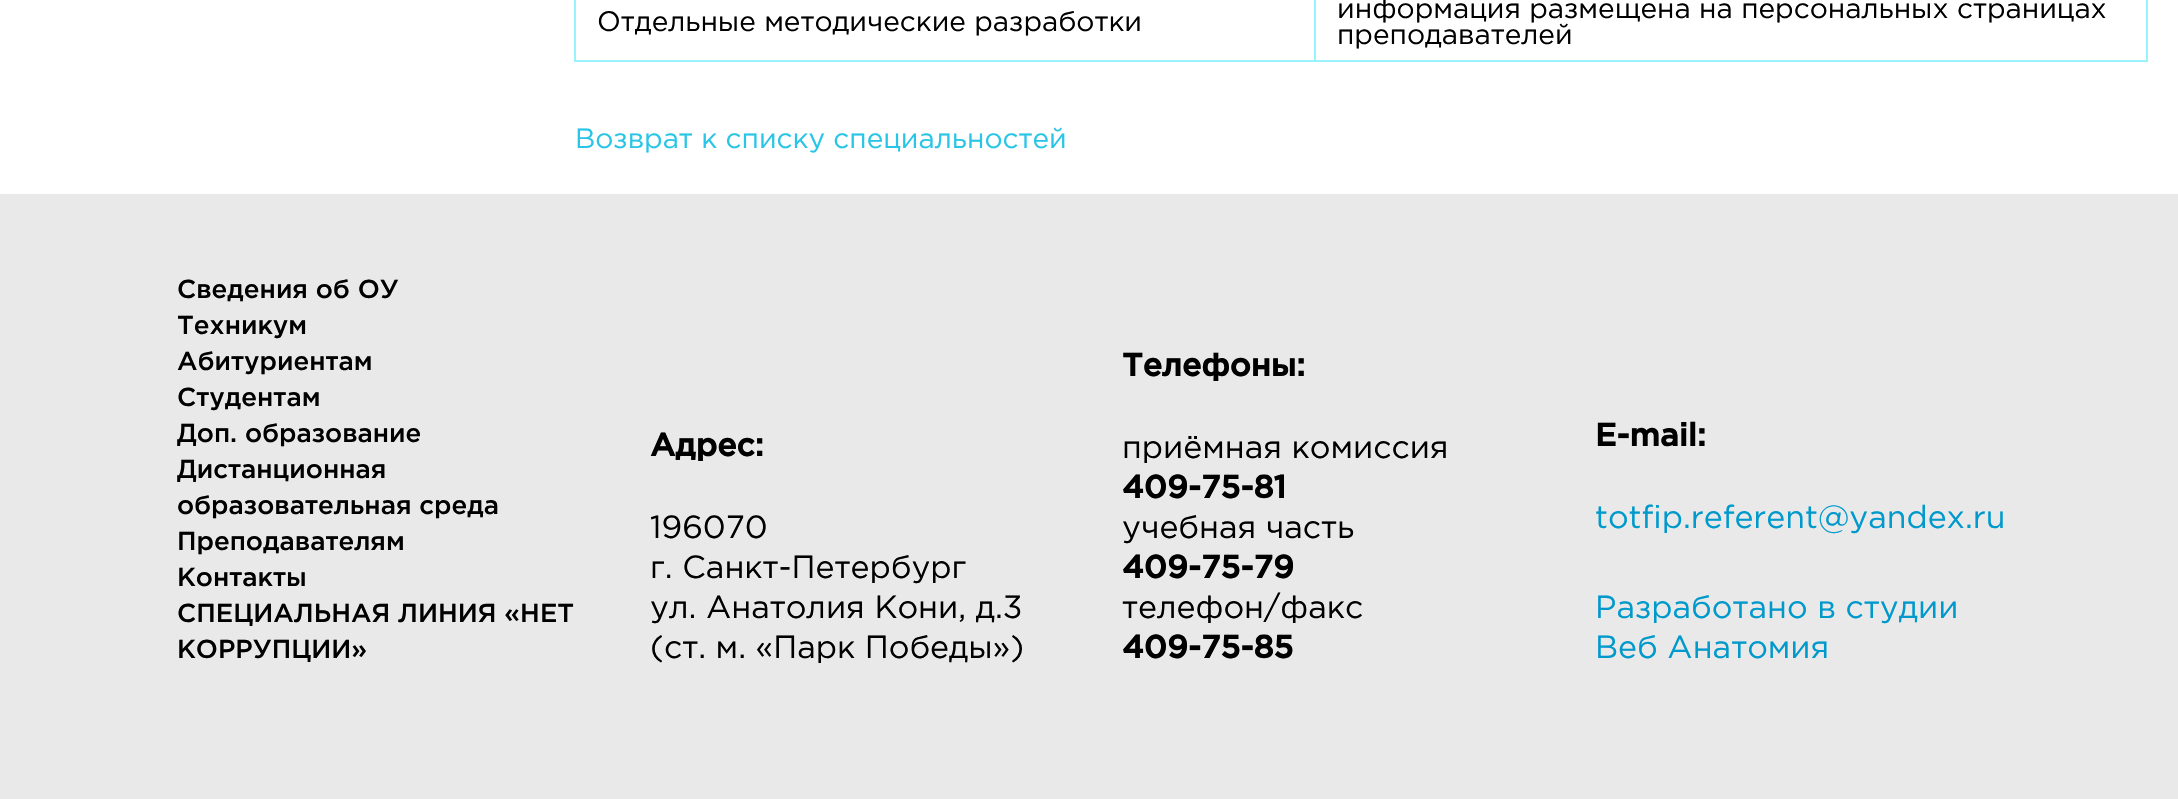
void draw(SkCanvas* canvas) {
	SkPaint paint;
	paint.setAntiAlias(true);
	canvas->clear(0xffffffff);
	paint.setColor(0xff99f3ff);
	canvas->drawRect(SkRect::MakeXYWH(2146, 0, 2, 62), paint);
	canvas->drawRect(SkRect::MakeXYWH(1314, 60, 834, 2), paint);
	canvas->drawRect(SkRect::MakeXYWH(1314, 0, 2, 62), paint);
	canvas->drawRect(SkRect::MakeXYWH(574, 60, 742, 2), paint);
	canvas->drawRect(SkRect::MakeXYWH(574, 0, 2, 62), paint);
	SkFont f1(fontMgr->matchFamilyStyle("Gotham", SkFontStyle::Normal()), 28);
	f1.setSubpixel(true);
	paint.setColor(0xff000000);
	canvas->drawString("Отдельные методические разработки", 597, 31, f1, paint);
	canvas->drawString("информация размещена на персональных страницах", 1337, 18, f1, paint);
	canvas->drawString("преподавателей", 1337, 44, f1, paint);
	paint.setColor(0xff29c5e6);
	canvas->drawString("Возврат к списку специальностей", 575, 148, f1, paint);
	paint.setColor(0xffe9e9e9);
	canvas->drawRect(SkRect::MakeXYWH(0, 194, 2178, 605), paint);
	SkFont f2(fontMgr->matchFamilyStyle("Gotham", SkFontStyle(500, SkFontStyle::kNormal_Width, SkFontStyle::kUpright_Slant)), 26);
	f2.setSubpixel(true);
	paint.setColor(0xff000000);
	canvas->drawString("Сведения об ОУ", 177, 298, f2, paint);
	canvas->drawString("Техникум", 177, 334, f2, paint);
	canvas->drawString("Абитуриентам", 177, 370, f2, paint);
	canvas->drawString("Студентам", 177, 406, f2, paint);
	canvas->drawString("Доп. образование", 177, 442, f2, paint);
	canvas->drawString("Дистанционная", 177, 478, f2, paint);
	canvas->drawString("образовательная среда", 177, 514, f2, paint);
	canvas->drawString("Преподавателям", 177, 550, f2, paint);
	canvas->drawString("Контакты", 177, 586, f2, paint);
	canvas->drawString("СПЕЦИАЛЬНАЯ ЛИНИЯ «НЕТ", 177, 622, f2, paint);
	canvas->drawString("КОРРУПЦИИ»", 177, 658, f2, paint);
	SkFont f3(fontMgr->matchFamilyStyle("Gotham", SkFontStyle::Bold()), 32);
	f3.setSubpixel(true);
	canvas->drawString("Адрес:", 650, 456, f3, paint);
	SkFont f4(fontMgr->matchFamilyStyle("Gotham", SkFontStyle::Normal()), 32);
	f4.setSubpixel(true);
	canvas->drawString("196070", 650, 538, f4, paint);
	canvas->drawString("г. Санкт-Петербург", 650, 578, f4, paint);
	canvas->drawString("ул. Анатолия Кони, д.3", 650, 618, f4, paint);
	canvas->drawString("(ст. м. «Парк Победы»)", 650, 658, f4, paint);
	canvas->drawString("Телефоны:", 1122, 376, f3, paint);
	canvas->drawString("приёмная комиссия", 1122, 458, f4, paint);
	canvas->drawString("409-75-81", 1122, 498, f3, paint);
	canvas->drawString("учебная часть", 1122, 538, f4, paint);
	canvas->drawString("409-75-79", 1122, 578, f3, paint);
	canvas->drawString("телефон/факс", 1122, 618, f4, paint);
	canvas->drawString("409-75-85", 1122, 658, f3, paint);
	canvas->drawString("E-mail:", 1595, 446, f3, paint);
	paint.setColor(0xff0099cc);
	canvas->drawString("totfip.referent@yandex.ru", 1595, 528, f4, paint);
	canvas->drawString("Разработано в студии", 1595, 618, f4, paint);
	canvas->drawString("Веб Анатомия", 1595, 658, f4, paint);
}
